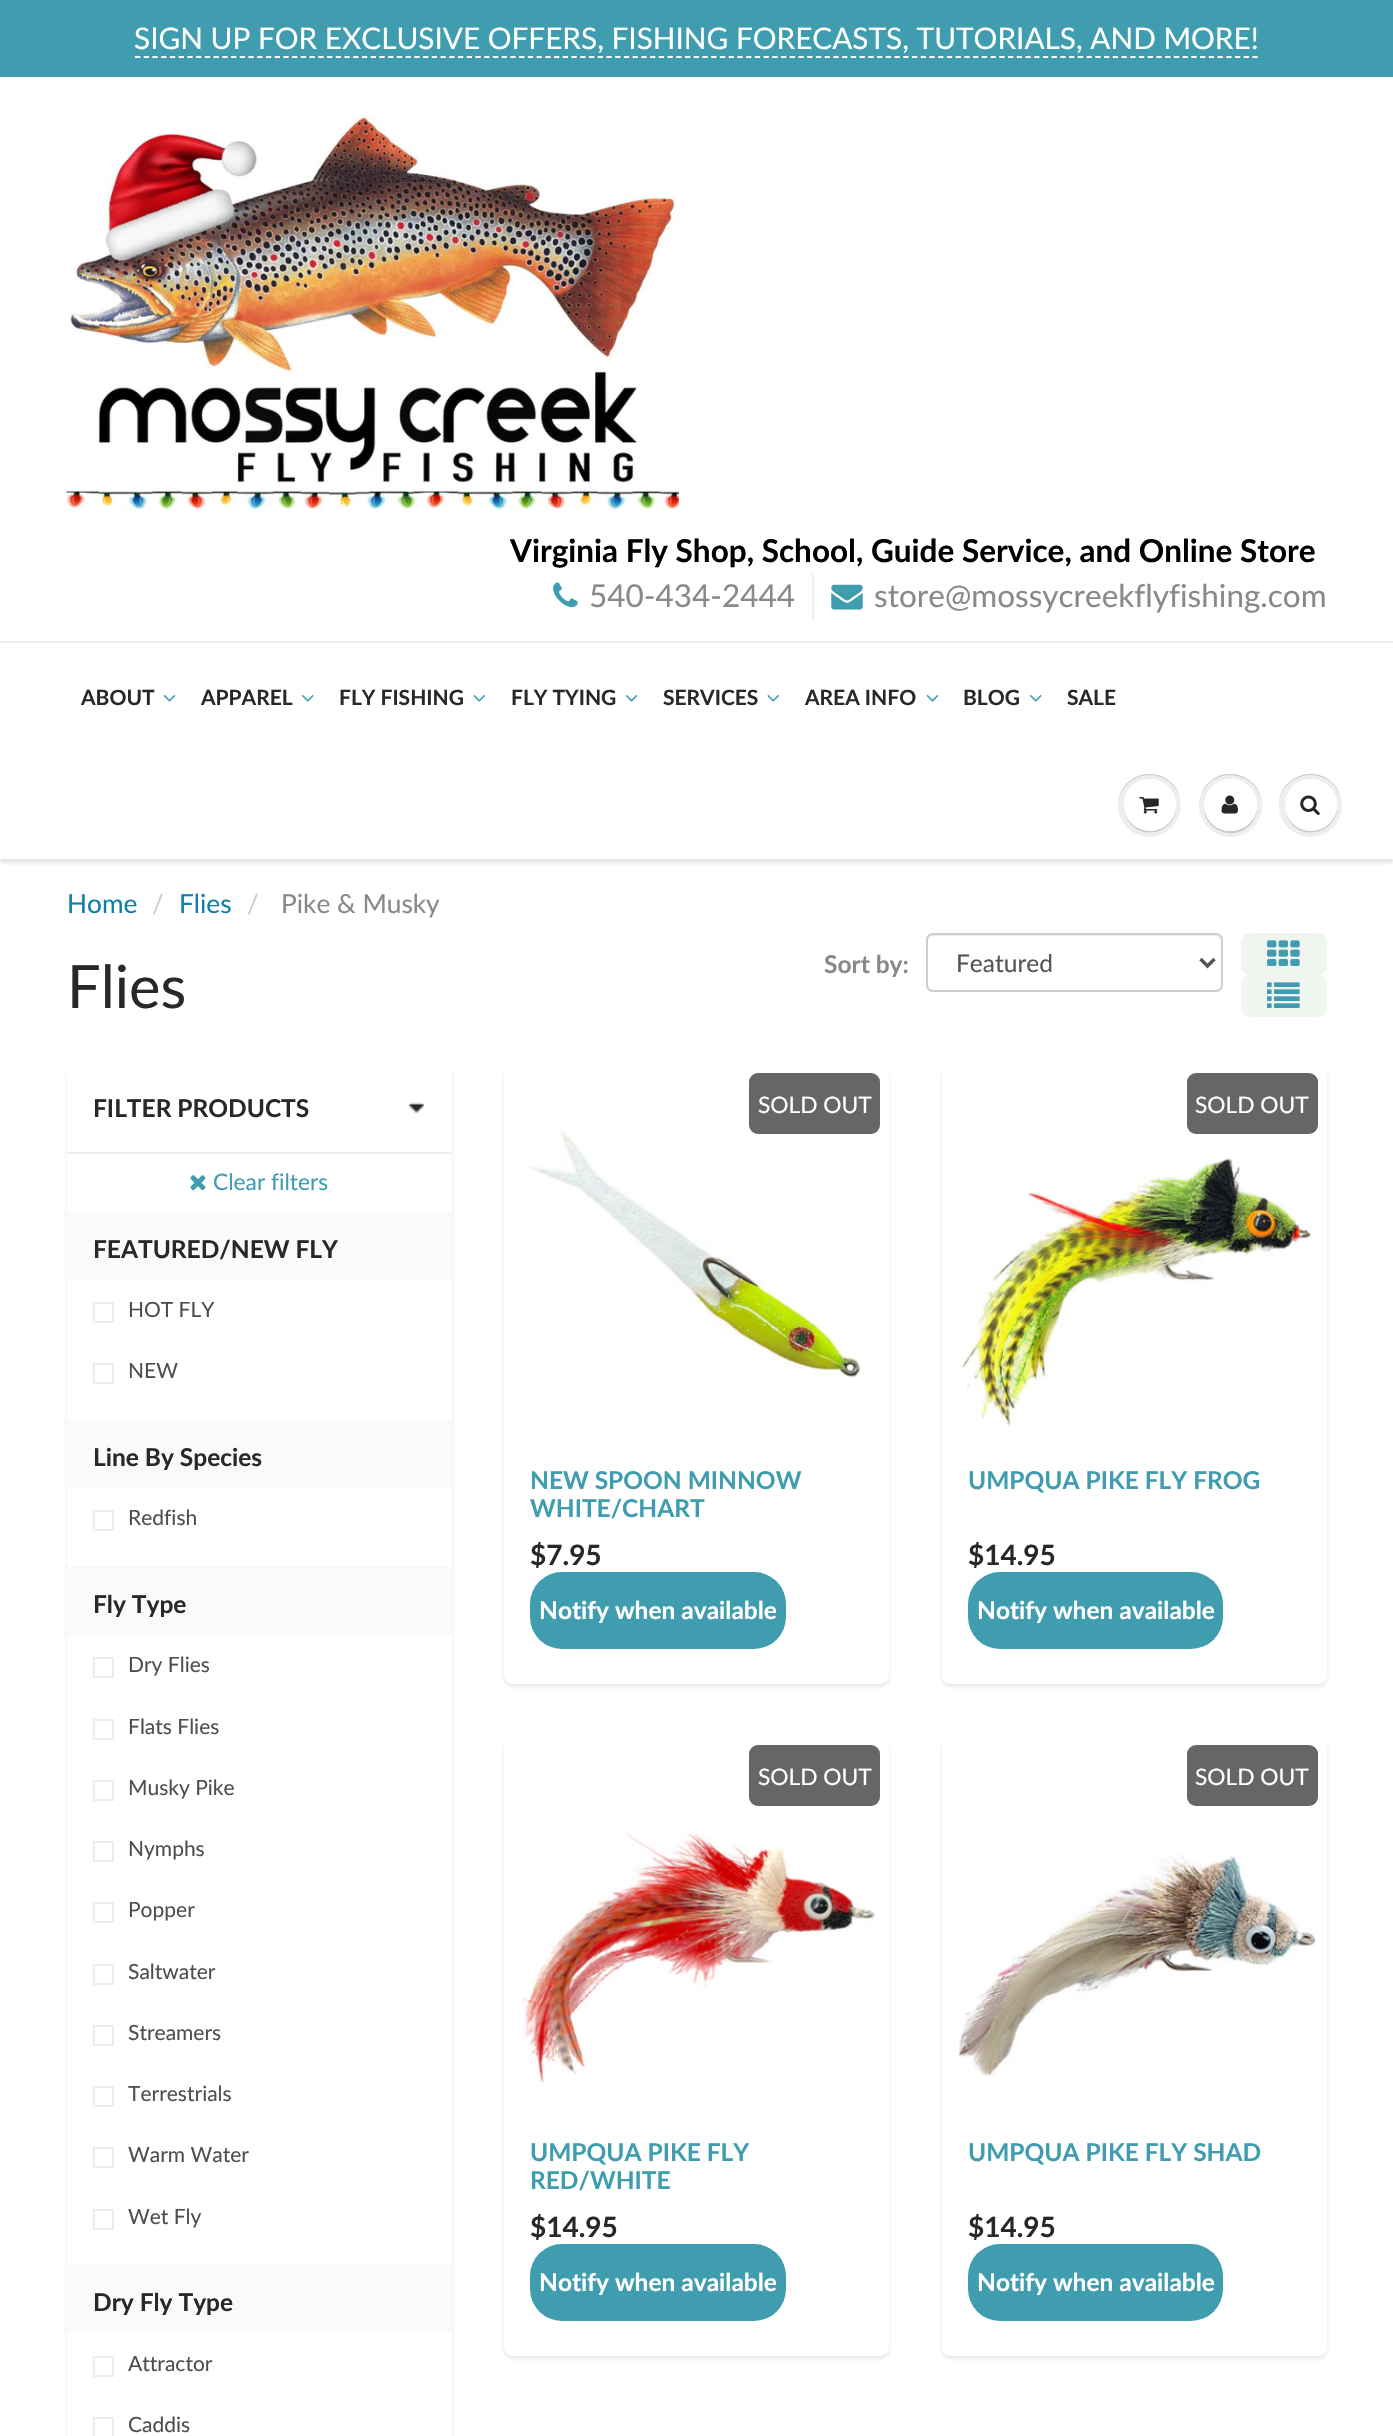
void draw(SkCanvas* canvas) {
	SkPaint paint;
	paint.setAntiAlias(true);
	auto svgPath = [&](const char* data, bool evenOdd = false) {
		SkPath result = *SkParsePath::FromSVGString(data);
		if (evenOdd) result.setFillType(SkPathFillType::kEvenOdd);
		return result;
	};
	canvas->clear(0xffffffff);
	paint.setColor(0xff3f9daf);
	canvas->drawRect(SkRect::MakeXYWH(0, 0, 1393, 77), paint);
	SkFont f1(fontMgr->matchFamilyStyle("Lato", SkFontStyle::Normal()), 29.75);
	f1.setSubpixel(true);
	paint.setColor(0xffffffff);
	canvas->drawString("SIGN UP FOR EXCLUSIVE OFFERS, FISHING FORECASTS, TUTORIALS, AND MORE!", 134, 49, f1, paint);
	paint.setStroke(true);
	paint.setStrokeWidth(1.8);
	paint.setPathEffect(SkDashPathEffect::Make({{5.25f, 3.48f}}, 0));
	canvas->drawPath(svgPath("M135 57H1258"), paint);
	paint.setPathEffect(nullptr);
	canvas->drawImageRect(SkImages::DeferredFromEncodedData(SkData::MakeFromFileName("img1.png")), SkRect::MakeXYWH(66, 115, 613, 396), SkSamplingOptions());
	SkFont f2(fontMgr->matchFamilyStyle("Lato", SkFontStyle::Bold()), 31.5);
	f2.setSubpixel(true);
	paint.setStroke(false);
	paint.setColor(0xff000000);
	canvas->drawString("Virginia Fly Shop, School, Guide Service, and Online Store", 510, 562, f2, paint);
	canvas->drawImageRect(SkImages::DeferredFromEncodedData(SkData::MakeFromFileName("img2.png")), SkRect::MakeXYWH(553, 582, 25, 26), SkSamplingOptions());
	SkFont f3(fontMgr->matchFamilyStyle("Lato", SkFontStyle::Normal()), 31.5);
	f3.setSubpixel(true);
	paint.setColor(0xff898989);
	canvas->drawString("540-434-2444", 589, 607, f3, paint);
	paint.setColor(0xffecefef);
	canvas->drawRect(SkRect::MakeXYWH(812, 574, 2, 46), paint);
	canvas->drawImageRect(SkImages::DeferredFromEncodedData(SkData::MakeFromFileName("img3.png")), SkRect::MakeXYWH(831, 584, 32, 26), SkSamplingOptions());
	paint.setColor(0xff898989);
	canvas->drawString("store@mossycreekflyfishing.com", 874, 607, f3, paint);
	canvas->save();
	canvas->clipRect(SkRect::MakeXYWH(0, 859, 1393, 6));
	paint.setColor(0x1f0b191c);
	paint.setMaskFilter(SkMaskFilter::MakeBlur(kNormal_SkBlurStyle, 2));
	canvas->drawRect(SkRect::MakeXYWH(0, 644, 1393, 219), paint);
	paint.setMaskFilter(nullptr);
	canvas->restore();
	paint.setColor(0xffecefef);
	canvas->drawRect(SkRect::MakeXYWH(0, 641, 1393, 2), paint);
	SkFont f4(fontMgr->matchFamilyStyle("Lato", SkFontStyle::Bold()), 21);
	f4.setSubpixel(true);
	paint.setColor(0xff282827);
	canvas->drawString("ABOUT", 81, 705, f4, paint);
	canvas->drawImageRect(SkImages::DeferredFromEncodedData(SkData::MakeFromFileName("img4.png")), SkRect::MakeXYWH(163, 695, 13, 7), SkSamplingOptions());
	canvas->drawString("APPAREL", 201, 705, f4, paint);
	canvas->drawImageRect(SkImages::DeferredFromEncodedData(SkData::MakeFromFileName("img5.png")), SkRect::MakeXYWH(302, 695, 12, 7), SkSamplingOptions());
	canvas->drawString("FLY FISHING", 339, 705, f4, paint);
	canvas->drawImageRect(SkImages::DeferredFromEncodedData(SkData::MakeFromFileName("img6.png")), SkRect::MakeXYWH(473, 695, 12, 7), SkSamplingOptions());
	canvas->drawString("FLY TYING", 511, 705, f4, paint);
	canvas->drawImageRect(SkImages::DeferredFromEncodedData(SkData::MakeFromFileName("img4.png")), SkRect::MakeXYWH(625, 695, 13, 7), SkSamplingOptions());
	canvas->drawString("SERVICES", 663, 705, f4, paint);
	canvas->drawImageRect(SkImages::DeferredFromEncodedData(SkData::MakeFromFileName("img6.png")), SkRect::MakeXYWH(767, 695, 12, 7), SkSamplingOptions());
	canvas->drawString("AREA INFO", 805, 705, f4, paint);
	canvas->drawImageRect(SkImages::DeferredFromEncodedData(SkData::MakeFromFileName("img4.png")), SkRect::MakeXYWH(926, 695, 13, 7), SkSamplingOptions());
	canvas->drawString("BLOG", 963, 705, f4, paint);
	canvas->drawImageRect(SkImages::DeferredFromEncodedData(SkData::MakeFromFileName("img5.png")), SkRect::MakeXYWH(1030, 695, 12, 7), SkSamplingOptions());
	canvas->drawString("SALE", 1067, 705, f4, paint);
	paint.setColor(0xffedefef);
	canvas->drawCircle(1149.5, 805.5, 31.5, paint);
	paint.setColor(0xffc9cbcb);
	canvas->drawPath(svgPath("M1150 775C1167 775 1181 789 1181 806C1181 800 1179 793 1176 788C1158 762 1117 775 1118 806C1118 789 1132 775 1150 775ZM1125 812C1131 843 1177 837 1176 806C1175 835 1133 840 1125 812Z"), paint);
	paint.setColor(0xffffffff);
	canvas->drawCircle(1150, 805, 26, paint);
	canvas->drawPath(svgPath("M1150 780C1164 780 1175 791 1176 806C1177 780 1143 769 1128 790C1125 795 1124 800 1124 806C1125 791 1135 780 1150 780Z"), paint);
	canvas->drawImageRect(SkImages::DeferredFromEncodedData(SkData::MakeFromFileName("img7.png")), SkRect::MakeXYWH(1139, 797, 20, 17), SkSamplingOptions());
	paint.setColor(0xffedefef);
	canvas->drawCircle(1230.5, 805.5, 31.5, paint);
	paint.setColor(0xffc9cbcb);
	canvas->drawPath(svgPath("M1230 775C1248 775 1262 789 1262 806C1263 775 1222 762 1204 788C1201 793 1199 800 1199 806C1199 789 1213 775 1230 775Z"), paint);
	canvas->drawPath(svgPath("M1204 806C1203 835 1244 844 1255 817C1257 812 1258 805 1256 800C1262 827 1225 843 1209 820C1206 816 1204 811 1204 806Z"), paint);
	paint.setColor(0xffffffff);
	canvas->drawRoundRect(SkRect::MakeXYWH(1204, 779, 53, 52), 26, 26, paint);
	canvas->drawPath(svgPath("M1230 780C1249 780 1261 801 1254 817C1268 791 1233 765 1212 787C1207 792 1204 799 1204 806C1205 791 1216 780 1230 780Z"), paint);
	canvas->drawImageRect(SkImages::DeferredFromEncodedData(SkData::MakeFromFileName("img8.png")), SkRect::MakeXYWH(1221, 795, 17, 19), SkSamplingOptions());
	paint.setColor(0xffedefef);
	canvas->drawCircle(1310.5, 805.5, 31.5, paint);
	paint.setColor(0xffc9cbcb);
	canvas->drawPath(svgPath("M1311 775C1328 775 1342 789 1342 806C1342 800 1340 793 1337 788C1319 762 1278 775 1279 806C1279 789 1293 775 1311 775ZM1286 812C1292 843 1338 837 1337 806C1336 835 1294 840 1286 812Z"), paint);
	paint.setColor(0xffffffff);
	canvas->drawCircle(1311, 805, 26, paint);
	canvas->drawPath(svgPath("M1311 780C1325 780 1336 791 1337 806C1338 779 1301 769 1288 792C1293 785 1301 780 1311 780Z"), paint);
	canvas->drawImageRect(SkImages::DeferredFromEncodedData(SkData::MakeFromFileName("img9.png")), SkRect::MakeXYWH(1300, 795, 20, 20), SkSamplingOptions());
	SkFont f5(fontMgr->matchFamilyStyle("Lato", SkFontStyle::Normal()), 26.25);
	f5.setSubpixel(true);
	paint.setColor(0xff107fa8);
	canvas->drawString("Home", 67, 913, f5, paint);
	paint.setColor(0xffcccccc);
	canvas->drawString("/", 152, 913, f5, paint);
	paint.setColor(0xff107fa8);
	canvas->drawString("Flies", 179, 913, f5, paint);
	paint.setColor(0xffcccccc);
	canvas->drawString("/", 247, 913, f5, paint);
	paint.setColor(0xff898989);
	canvas->drawString("Pike & Musky", 281, 913, f5, paint);
	paint.setColor(0x1a0b191c);
	paint.setMaskFilter(SkMaskFilter::MakeBlur(kNormal_SkBlurStyle, 2));
	canvas->drawRoundRect(SkRect::MakeXYWH(67, 1068, 385, 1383), 9, 9, paint);
	paint.setMaskFilter(nullptr);
	paint.setColor(0xffffffff);
	canvas->drawRoundRect(SkRect::MakeXYWH(67, 1064, 385, 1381), 9, 9, paint);
	paint.setColor(0xffefefef);
	canvas->drawRect(SkRect::MakeXYWH(67, 1152, 385, 2), paint);
	canvas->drawImageRect(SkImages::DeferredFromEncodedData(SkData::MakeFromFileName("img10.png")), SkRect::MakeXYWH(408, 1102, 17, 11), SkSamplingOptions());
	SkFont f6(fontMgr->matchFamilyStyle("Lato", SkFontStyle::Bold()), 24.5);
	f6.setSubpixel(true);
	paint.setColor(0xff282827);
	canvas->drawString("FILTER PRODUCTS", 93, 1117, f6, paint);
	canvas->drawImageRect(SkImages::DeferredFromEncodedData(SkData::MakeFromFileName("img11.png")), SkRect::MakeXYWH(190, 1175, 16, 16), SkSamplingOptions());
	SkFont f7(fontMgr->matchFamilyStyle("Lato", SkFontStyle::Normal()), 22.75);
	f7.setSubpixel(true);
	paint.setColor(0xff3f9daf);
	canvas->drawString("Clear filters", 213, 1190, f7, paint);
	paint.setColor(0xfffafafa);
	canvas->drawRect(SkRect::MakeXYWH(67, 1211, 385, 68), paint);
	paint.setColor(0xff282827);
	canvas->drawString("FEATURED/NEW FLY", 93, 1258, f6, paint);
	paint.setStroke(true);
	paint.setStrokeWidth(2);
	paint.setColor(0xffececec);
	canvas->drawRect(SkRect::MakeXYWH(94, 1303, 19, 19), paint);
	SkFont f8(fontMgr->matchFamilyStyle("Lato", SkFontStyle::Normal()), 21);
	f8.setSubpixel(true);
	paint.setStroke(false);
	paint.setColor(0xff4e4e4e);
	canvas->drawString("HOT FLY", 128, 1317, f8, paint);
	paint.setStroke(true);
	paint.setColor(0xffececec);
	canvas->drawRect(SkRect::MakeXYWH(94, 1364, 19, 19), paint);
	paint.setStroke(false);
	paint.setColor(0xff4e4e4e);
	canvas->drawString("NEW", 128, 1378, f8, paint);
	paint.setColor(0xfffafafa);
	canvas->drawRect(SkRect::MakeXYWH(67, 1419, 385, 69), paint);
	paint.setColor(0xff282827);
	canvas->drawString("Line By Species", 93, 1466, f6, paint);
	paint.setStroke(true);
	paint.setColor(0xffececec);
	canvas->drawRect(SkRect::MakeXYWH(94, 1511, 19, 19), paint);
	paint.setStroke(false);
	paint.setColor(0xff4e4e4e);
	canvas->drawString("Redfish", 128, 1525, f8, paint);
	paint.setColor(0xfffafafa);
	canvas->drawRect(SkRect::MakeXYWH(67, 1566, 385, 69), paint);
	paint.setColor(0xff282827);
	canvas->drawString("Fly Type", 93, 1613, f6, paint);
	paint.setStroke(true);
	paint.setColor(0xffececec);
	canvas->drawRect(SkRect::MakeXYWH(94, 1658, 19, 19), paint);
	paint.setStroke(false);
	paint.setColor(0xff4e4e4e);
	canvas->drawString("Dry Flies", 128, 1672, f8, paint);
	paint.setStroke(true);
	paint.setColor(0xffececec);
	canvas->drawRect(SkRect::MakeXYWH(94, 1720, 19, 19), paint);
	paint.setStroke(false);
	paint.setColor(0xff4e4e4e);
	canvas->drawString("Flats Flies", 128, 1734, f8, paint);
	paint.setStroke(true);
	paint.setColor(0xffececec);
	canvas->drawRect(SkRect::MakeXYWH(94, 1781, 19, 19), paint);
	paint.setStroke(false);
	paint.setColor(0xff4e4e4e);
	canvas->drawString("Musky Pike", 128, 1795, f8, paint);
	paint.setStroke(true);
	paint.setColor(0xffececec);
	canvas->drawRect(SkRect::MakeXYWH(94, 1842, 19, 19), paint);
	paint.setStroke(false);
	paint.setColor(0xff4e4e4e);
	canvas->drawString("Nymphs", 128, 1856, f8, paint);
	paint.setStroke(true);
	paint.setColor(0xffececec);
	canvas->drawRect(SkRect::MakeXYWH(94, 1903, 19, 19), paint);
	paint.setStroke(false);
	paint.setColor(0xff4e4e4e);
	canvas->drawString("Popper", 128, 1917, f8, paint);
	paint.setStroke(true);
	paint.setColor(0xffececec);
	canvas->drawRect(SkRect::MakeXYWH(94, 1965, 19, 19), paint);
	paint.setStroke(false);
	paint.setColor(0xff4e4e4e);
	canvas->drawString("Saltwater", 128, 1979, f8, paint);
	paint.setStroke(true);
	paint.setColor(0xffececec);
	canvas->drawRect(SkRect::MakeXYWH(94, 2026, 19, 19), paint);
	paint.setStroke(false);
	paint.setColor(0xff4e4e4e);
	canvas->drawString("Streamers", 128, 2040, f8, paint);
	paint.setStroke(true);
	paint.setColor(0xffececec);
	canvas->drawRect(SkRect::MakeXYWH(94, 2087, 19, 19), paint);
	paint.setStroke(false);
	paint.setColor(0xff4e4e4e);
	canvas->drawString("Terrestrials", 128, 2101, f8, paint);
	paint.setStroke(true);
	paint.setColor(0xffececec);
	canvas->drawRect(SkRect::MakeXYWH(94, 2148, 19, 19), paint);
	paint.setStroke(false);
	paint.setColor(0xff4e4e4e);
	canvas->drawString("Warm Water", 128, 2162, f8, paint);
	paint.setStroke(true);
	paint.setColor(0xffececec);
	canvas->drawRect(SkRect::MakeXYWH(94, 2210, 19, 19), paint);
	paint.setStroke(false);
	paint.setColor(0xff4e4e4e);
	canvas->drawString("Wet Fly", 128, 2224, f8, paint);
	paint.setColor(0xfffafafa);
	canvas->drawRect(SkRect::MakeXYWH(67, 2265, 385, 68), paint);
	paint.setColor(0xff282827);
	canvas->drawString("Dry Fly Type", 93, 2311, f6, paint);
	paint.setStroke(true);
	paint.setColor(0xffececec);
	canvas->drawRect(SkRect::MakeXYWH(94, 2357, 19, 19), paint);
	paint.setStroke(false);
	paint.setColor(0xff4e4e4e);
	canvas->drawString("Attractor", 128, 2371, f8, paint);
	paint.setStroke(true);
	paint.setColor(0xffececec);
	canvas->drawRect(SkRect::MakeXYWH(94, 2418, 19, 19), paint);
	paint.setStroke(false);
	paint.setColor(0xff4e4e4e);
	canvas->drawString("Caddis", 128, 2432, f8, paint);
	paint.setColor(0xff898989);
	canvas->drawString("Sort by:", 824, 973, f6, paint);
	paint.setColor(0xffececec);
	canvas->drawPath(svgPath("M933 936H1216C1219 936 1222 939 1222 942C1222 939 1221 935 1217 935H932C928 936 928 939 928 942C928 939 930 936 933 936Z"), paint);
	paint.setStroke(true);
	paint.setColor(0xffcccccc);
	canvas->drawRoundRect(SkRect::MakeXYWH(927, 934, 295, 57), 6, 6, paint);
	paint.setStrokeWidth(3.5);
	paint.setColor(0xff555555);
	canvas->drawPath(svgPath("M1200.5 959L1207.5 966L1214.5 959"), paint);
	SkFont f9(fontMgr->matchFamilyStyle("Lato", SkFontStyle::Normal()), 24.5);
	f9.setSubpixel(true);
	paint.setStroke(false);
	canvas->drawString("Featured", 956, 972, f9, paint);
	paint.setColor(0xfff1f5f0);
	canvas->drawRoundRect(SkRect::MakeXYWH(1241, 933, 86, 42), 9, 9, paint);
	canvas->drawImageRect(SkImages::DeferredFromEncodedData(SkData::MakeFromFileName("img12.png")), SkRect::MakeXYWH(1267, 940, 33, 26), SkSamplingOptions());
	canvas->drawRoundRect(SkRect::MakeXYWH(1241, 975, 86, 42), 9, 9, paint);
	canvas->drawImageRect(SkImages::DeferredFromEncodedData(SkData::MakeFromFileName("img13.png")), SkRect::MakeXYWH(1267, 982, 33, 26), SkSamplingOptions());
	paint.setColor(0x1a0b191c);
	paint.setMaskFilter(SkMaskFilter::MakeBlur(kNormal_SkBlurStyle, 2));
	canvas->drawRoundRect(SkRect::MakeXYWH(504, 1068, 385, 619), 9, 9, paint);
	paint.setMaskFilter(nullptr);
	paint.setColor(0xffffffff);
	canvas->drawRoundRect(SkRect::MakeXYWH(508.5, 1068.5, 376, 611), 4.5, 4.5, paint);
	paint.setStroke(true);
	paint.setStrokeWidth(9);
	canvas->drawRoundRect(SkRect::MakeXYWH(508.5, 1068.5, 376, 611), 4.5, 4.5, paint);
	canvas->drawImageRect(SkImages::DeferredFromEncodedData(SkData::MakeFromFileName("img14.png")), SkRect::MakeXYWH(529, 1131, 332, 248), SkSamplingOptions());
	paint.setStroke(false);
	paint.setColor(0xff666666);
	canvas->drawRoundRect(SkRect::MakeXYWH(749, 1073, 131, 61), 9, 9, paint);
	paint.setColor(0xffffffff);
	canvas->drawString("SOLD OUT", 758, 1113, f7, paint);
	paint.setColor(0xff3f9daf);
	canvas->drawString("NEW SPOON MINNOW", 530, 1489, f6, paint);
	canvas->drawString("WHITE/CHART", 530, 1517, f6, paint);
	SkFont f10(fontMgr->matchFamilyStyle("Lato", SkFontStyle::Bold()), 28);
	f10.setSubpixel(true);
	paint.setColor(0xff282827);
	canvas->drawString("$7.95", 530, 1565, f10, paint);
	paint.setColor(0xff3f9daf);
	canvas->drawRoundRect(SkRect::MakeXYWH(530, 1572, 256, 77), 32, 32, paint);
	paint.setColor(0xffffffff);
	canvas->drawString("Notify when available", 539, 1619, f6, paint);
	paint.setColor(0x1a0b191c);
	paint.setMaskFilter(SkMaskFilter::MakeBlur(kNormal_SkBlurStyle, 2));
	canvas->drawRoundRect(SkRect::MakeXYWH(942, 1068, 385, 619), 9, 9, paint);
	paint.setMaskFilter(nullptr);
	paint.setColor(0xffffffff);
	canvas->drawRoundRect(SkRect::MakeXYWH(946.5, 1068.5, 376, 611), 4.5, 4.5, paint);
	paint.setStroke(true);
	canvas->drawRoundRect(SkRect::MakeXYWH(946.5, 1068.5, 376, 611), 4.5, 4.5, paint);
	paint.setStroke(false);
	paint.setColor(0xff666666);
	canvas->drawRoundRect(SkRect::MakeXYWH(1187, 1073, 131, 61), 9, 9, paint);
	paint.setColor(0xffffffff);
	canvas->drawString("SOLD OUT", 1195, 1113, f7, paint);
	canvas->drawImageRect(SkImages::DeferredFromEncodedData(SkData::MakeFromFileName("img15.png")), SkRect::MakeXYWH(959, 1157, 353, 269), SkSamplingOptions());
	paint.setColor(0xff3f9daf);
	canvas->drawString("UMPQUA PIKE FLY FROG", 968, 1489, f6, paint);
	paint.setColor(0xff282827);
	canvas->drawString("$14.95", 968, 1565, f10, paint);
	paint.setColor(0xff3f9daf);
	canvas->drawRoundRect(SkRect::MakeXYWH(968, 1572, 255, 77), 32, 32, paint);
	paint.setColor(0xffffffff);
	canvas->drawString("Notify when available", 977, 1619, f6, paint);
	paint.setColor(0x1a0b191c);
	paint.setMaskFilter(SkMaskFilter::MakeBlur(kNormal_SkBlurStyle, 2));
	canvas->drawRoundRect(SkRect::MakeXYWH(504, 1740, 385, 619), 9, 9, paint);
	paint.setMaskFilter(nullptr);
	paint.setColor(0xffffffff);
	canvas->drawRoundRect(SkRect::MakeXYWH(508.5, 1740.5, 376, 611), 4.5, 4.5, paint);
	paint.setStroke(true);
	canvas->drawRoundRect(SkRect::MakeXYWH(508.5, 1740.5, 376, 611), 4.5, 4.5, paint);
	paint.setStroke(false);
	paint.setColor(0xff666666);
	canvas->drawRoundRect(SkRect::MakeXYWH(749, 1745, 131, 61), 9, 9, paint);
	paint.setColor(0xffffffff);
	canvas->drawString("SOLD OUT", 758, 1785, f7, paint);
	canvas->drawImageRect(SkImages::DeferredFromEncodedData(SkData::MakeFromFileName("img16.png")), SkRect::MakeXYWH(522, 1833, 354, 250), SkSamplingOptions());
	paint.setColor(0xff3f9daf);
	canvas->drawString("UMPQUA PIKE FLY", 530, 2161, f6, paint);
	canvas->drawString("RED/WHITE", 530, 2189, f6, paint);
	paint.setColor(0xff282827);
	canvas->drawString("$14.95", 530, 2237, f10, paint);
	paint.setColor(0xff3f9daf);
	canvas->drawRoundRect(SkRect::MakeXYWH(530, 2244, 256, 77), 32, 32, paint);
	paint.setColor(0xffffffff);
	canvas->drawString("Notify when available", 539, 2291, f6, paint);
	paint.setColor(0x1a0b191c);
	paint.setMaskFilter(SkMaskFilter::MakeBlur(kNormal_SkBlurStyle, 2));
	canvas->drawRoundRect(SkRect::MakeXYWH(942, 1740, 385, 619), 9, 9, paint);
	paint.setMaskFilter(nullptr);
	paint.setColor(0xffffffff);
	canvas->drawRoundRect(SkRect::MakeXYWH(946.5, 1740.5, 376, 611), 4.5, 4.5, paint);
	paint.setStroke(true);
	canvas->drawRoundRect(SkRect::MakeXYWH(946.5, 1740.5, 376, 611), 4.5, 4.5, paint);
	paint.setStroke(false);
	paint.setColor(0xff666666);
	canvas->drawRoundRect(SkRect::MakeXYWH(1187, 1745, 131, 61), 9, 9, paint);
	paint.setColor(0xffffffff);
	canvas->drawString("SOLD OUT", 1195, 1785, f7, paint);
	canvas->drawImageRect(SkImages::DeferredFromEncodedData(SkData::MakeFromFileName("img17.png")), SkRect::MakeXYWH(958, 1853, 358, 223), SkSamplingOptions());
	paint.setColor(0xff3f9daf);
	canvas->drawString("UMPQUA PIKE FLY SHAD", 968, 2161, f6, paint);
	paint.setColor(0xff282827);
	canvas->drawString("$14.95", 968, 2237, f10, paint);
	paint.setColor(0xff3f9daf);
	canvas->drawRoundRect(SkRect::MakeXYWH(968, 2244, 255, 77), 32, 32, paint);
	paint.setColor(0xffffffff);
	canvas->drawString("Notify when available", 977, 2291, f6, paint);
	SkFont f11(fontMgr->matchFamilyStyle("Lato", SkFontStyle::Normal()), 59.5);
	f11.setSubpixel(true);
	paint.setColor(0xff282827);
	canvas->drawString("Flies", 67, 1008, f11, paint);
}
